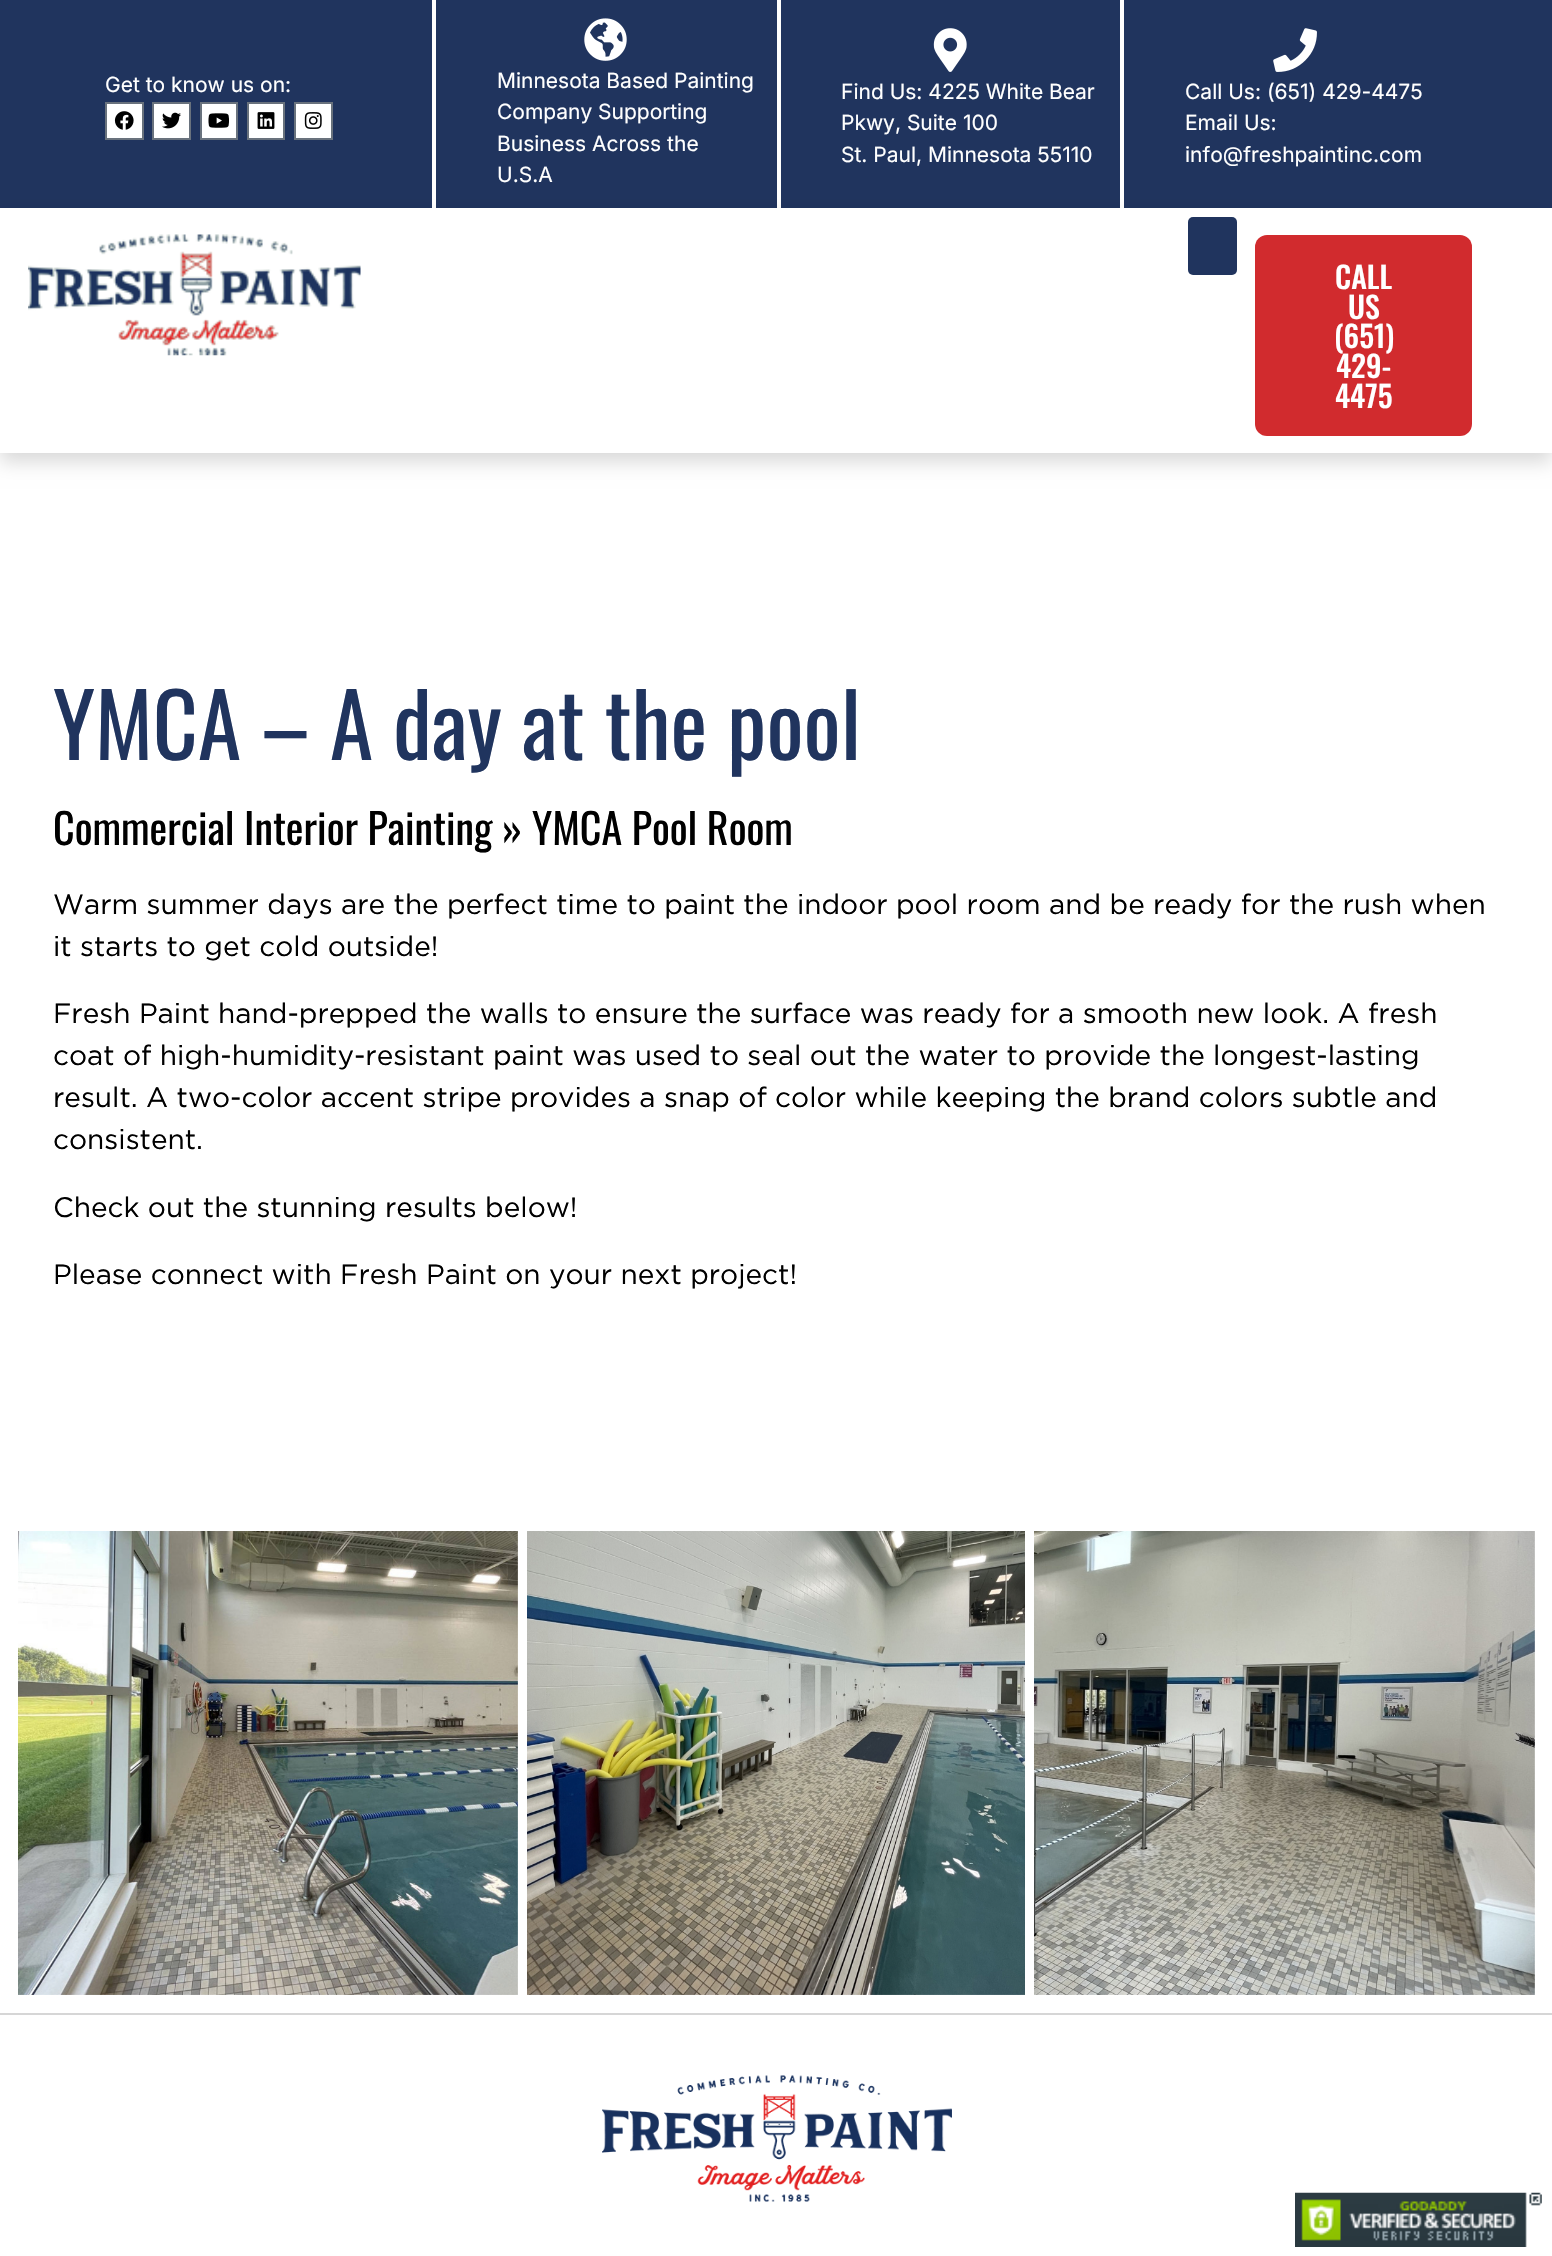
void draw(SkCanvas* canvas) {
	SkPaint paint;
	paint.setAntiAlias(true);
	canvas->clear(0xffffffff);
	paint.setColor(0xff20345e);
	canvas->drawRect(SkRect::MakeXYWH(0, 0, 1552, 208), paint);
	SkFont f1(fontMgr->matchFamilyStyle("Inter", SkFontStyle::Normal()), 21);
	f1.setSubpixel(true);
	paint.setColor(0xffffffff);
	canvas->drawString("Get to know us on:", 105, 92, f1, paint);
	canvas->drawRect(SkRect::MakeXYWH(106, 103, 37, 36), paint);
	paint.setStroke(true);
	paint.setStrokeWidth(2);
	paint.setColor(0xff69727d);
	canvas->drawRect(SkRect::MakeXYWH(106, 103, 37, 36), paint);
	canvas->drawImageRect(SkImages::DeferredFromEncodedData(SkData::MakeFromFileName("img1.png")), SkRect::MakeXYWH(114, 111, 20, 19), SkSamplingOptions());
	paint.setStroke(false);
	paint.setColor(0xffffffff);
	canvas->drawRect(SkRect::MakeXYWH(153, 103, 37, 36), paint);
	paint.setStroke(true);
	paint.setColor(0xff69727d);
	canvas->drawRect(SkRect::MakeXYWH(153, 103, 37, 36), paint);
	canvas->drawImageRect(SkImages::DeferredFromEncodedData(SkData::MakeFromFileName("img2.png")), SkRect::MakeXYWH(162, 112, 19, 17), SkSamplingOptions());
	paint.setStroke(false);
	paint.setColor(0xffffffff);
	canvas->drawRect(SkRect::MakeXYWH(201, 103, 36, 36), paint);
	paint.setStroke(true);
	paint.setColor(0xff69727d);
	canvas->drawRect(SkRect::MakeXYWH(201, 103, 36, 36), paint);
	canvas->drawImageRect(SkImages::DeferredFromEncodedData(SkData::MakeFromFileName("img3.png")), SkRect::MakeXYWH(208, 113, 21, 15), SkSamplingOptions());
	paint.setStroke(false);
	paint.setColor(0xffffffff);
	canvas->drawRect(SkRect::MakeXYWH(248, 103, 36, 36), paint);
	paint.setStroke(true);
	paint.setColor(0xff69727d);
	canvas->drawRect(SkRect::MakeXYWH(248, 103, 36, 36), paint);
	canvas->drawImageRect(SkImages::DeferredFromEncodedData(SkData::MakeFromFileName("img4.png")), SkRect::MakeXYWH(257, 112, 18, 17), SkSamplingOptions());
	paint.setStroke(false);
	paint.setColor(0xffffffff);
	canvas->drawRect(SkRect::MakeXYWH(295, 103, 37, 36), paint);
	paint.setStroke(true);
	paint.setColor(0xff69727d);
	canvas->drawRect(SkRect::MakeXYWH(295, 103, 37, 36), paint);
	canvas->drawImageRect(SkImages::DeferredFromEncodedData(SkData::MakeFromFileName("img5.png")), SkRect::MakeXYWH(304, 112, 18, 17), SkSamplingOptions());
	paint.setStroke(false);
	paint.setColor(0xffffffff);
	canvas->drawRect(SkRect::MakeXYWH(432, 0, 4, 208), paint);
	canvas->drawImageRect(SkImages::DeferredFromEncodedData(SkData::MakeFromFileName("img6.png")), SkRect::MakeXYWH(584, 18, 43, 43), SkSamplingOptions());
	canvas->drawString("Minnesota Based Painting", 497, 88, f1, paint);
	canvas->drawString("Company Supporting", 497, 119, f1, paint);
	canvas->drawString("Business Across the", 497, 151, f1, paint);
	canvas->drawString("U.S.A", 497, 182, f1, paint);
	canvas->drawRect(SkRect::MakeXYWH(777, 0, 4, 208), paint);
	canvas->drawImageRect(SkImages::DeferredFromEncodedData(SkData::MakeFromFileName("img7.png")), SkRect::MakeXYWH(933, 28, 34, 44), SkSamplingOptions());
	canvas->drawString("Find Us: 4225 White Bear", 841, 99, f1, paint);
	canvas->drawString("Pkwy, Suite 100", 841, 130, f1, paint);
	canvas->drawString("St. Paul, Minnesota 55110", 841, 162, f1, paint);
	canvas->drawRect(SkRect::MakeXYWH(1120, 0, 4, 208), paint);
	canvas->drawImageRect(SkImages::DeferredFromEncodedData(SkData::MakeFromFileName("img8.png")), SkRect::MakeXYWH(1273, 28, 44, 44), SkSamplingOptions());
	canvas->drawString("Call Us: (651) 429-4475", 1185, 99, f1, paint);
	canvas->drawString("Email Us:", 1185, 130, f1, paint);
	canvas->drawString("info@freshpaintinc.com", 1185, 162, f1, paint);
	paint.setColor(0x26000000);
	paint.setMaskFilter(SkMaskFilter::MakeBlur(kNormal_SkBlurStyle, 9));
	canvas->drawRect(SkRect::MakeXYWH(0, 217, 1552, 245), paint);
	paint.setMaskFilter(nullptr);
	paint.setColor(0xffffffff);
	canvas->drawRect(SkRect::MakeXYWH(0, 208, 1552, 245), paint);
	canvas->drawImageRect(SkImages::DeferredFromEncodedData(SkData::MakeFromFileName("img9.png")), SkRect::MakeXYWH(28, 234, 333, 122), SkSamplingOptions());
	paint.setColor(0xff20345e);
	canvas->drawRoundRect(SkRect::MakeXYWH(1188, 217, 49, 58), 5, 5, paint);
	paint.setColor(0xffd12b2e);
	canvas->drawRoundRect(SkRect::MakeXYWH(1255, 235, 217, 201), 12, 12, paint);
	SkFont f2(fontMgr->matchFamilyStyle("Oswald", SkFontStyle(500, SkFontStyle::kNormal_Width, SkFontStyle::kUpright_Slant)), 30);
	f2.setSubpixel(true);
	paint.setColor(0xffffffff);
	canvas->drawString("CALL", 1335, 289, f2, paint);
	canvas->drawString("US", 1348, 319, f2, paint);
	canvas->drawString("(651)", 1334, 348, f2, paint);
	canvas->drawString("429-", 1336, 378, f2, paint);
	canvas->drawString("4475", 1335, 408, f2, paint);
	SkFont f3(fontMgr->matchFamilyStyle("Oswald", SkFontStyle::Normal()), 87.5);
	f3.setSubpixel(true);
	paint.setColor(0xff20345e);
	canvas->drawString("YMCA – A day at the pool", 53, 760, f3, paint);
	SkFont f4(fontMgr->matchFamilyStyle("Oswald", SkFontStyle::Normal()), 42);
	f4.setSubpixel(true);
	paint.setColor(0xff000000);
	canvas->drawString("Commercial Interior Painting » YMCA Pool Room", 53, 845, f4, paint);
	SkFont f5(fontMgr->matchFamilyStyle("Gotham", SkFontStyle::Normal()), 28);
	f5.setSubpixel(true);
	canvas->drawString("Warm summer days are the perfect time to paint the indoor pool room and be ready for the rush when", 53, 914, f5, paint);
	canvas->drawString("it starts to get cold outside!", 53, 956, f5, paint);
	canvas->drawString("Fresh Paint hand-prepped the walls to ensure the surface was ready for a smooth new look. A fresh", 53, 1023, f5, paint);
	canvas->drawString("coat of high-humidity-resistant paint was used to seal out the water to provide the longest-lasting", 53, 1065, f5, paint);
	canvas->drawString("result. A two-color accent stripe provides a snap of color while keeping the brand colors subtle and", 53, 1107, f5, paint);
	canvas->drawString("consistent.", 53, 1149, f5, paint);
	canvas->drawString("Check out the stunning results below!", 53, 1217, f5, paint);
	canvas->drawString("Please connect with Fresh Paint on your next project!", 53, 1284, f5, paint);
	canvas->drawImageRect(SkImages::DeferredFromEncodedData(SkData::MakeFromFileName("img10.png")), SkRect::MakeXYWH(18, 1531, 500, 464), SkSamplingOptions());
	canvas->drawImageRect(SkImages::DeferredFromEncodedData(SkData::MakeFromFileName("img11.png")), SkRect::MakeXYWH(527, 1531, 498, 464), SkSamplingOptions());
	canvas->drawImageRect(SkImages::DeferredFromEncodedData(SkData::MakeFromFileName("img12.png")), SkRect::MakeXYWH(1034, 1531, 501, 464), SkSamplingOptions());
	paint.setColor(0xffd6d6d6);
	canvas->drawRect(SkRect::MakeXYWH(0, 2013, 1552, 2), paint);
	canvas->drawImageRect(SkImages::DeferredFromEncodedData(SkData::MakeFromFileName("img13.png")), SkRect::MakeXYWH(602, 2075, 350, 127), SkSamplingOptions());
	canvas->drawImageRect(SkImages::DeferredFromEncodedData(SkData::MakeFromFileName("img14.png")), SkRect::MakeXYWH(1295, 2192, 247, 55), SkSamplingOptions());
}
